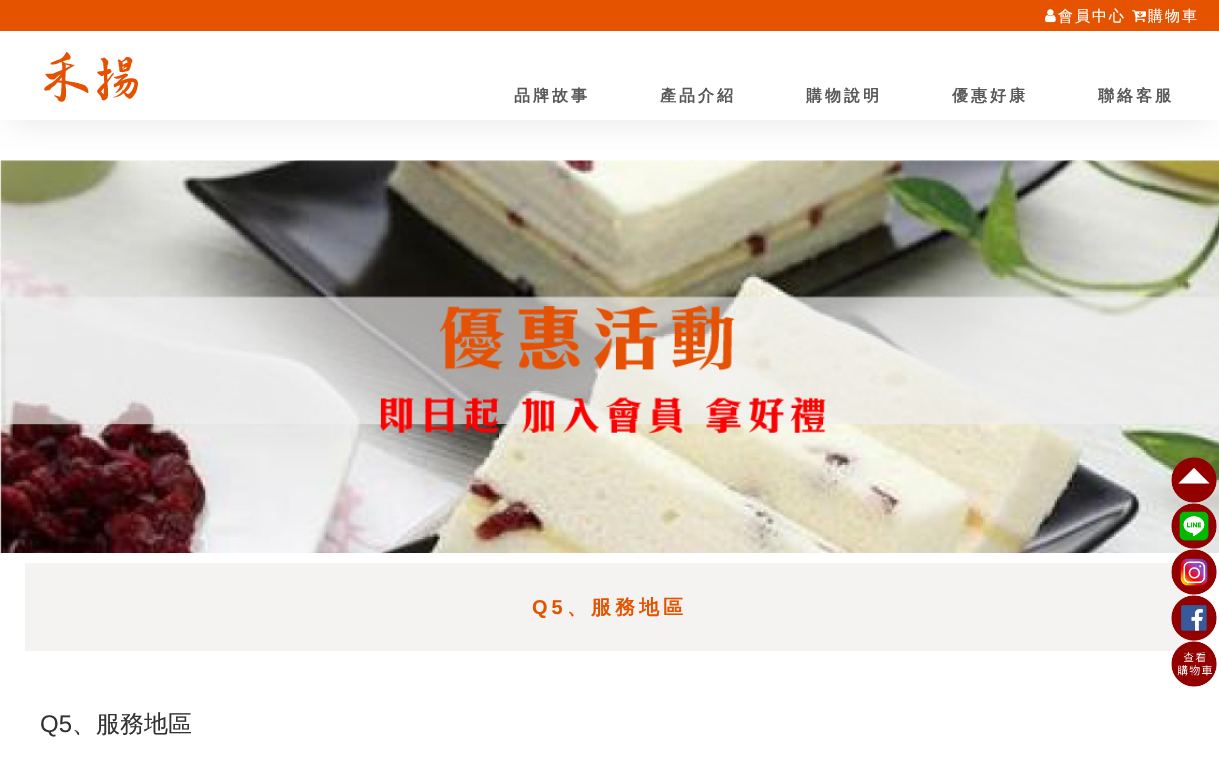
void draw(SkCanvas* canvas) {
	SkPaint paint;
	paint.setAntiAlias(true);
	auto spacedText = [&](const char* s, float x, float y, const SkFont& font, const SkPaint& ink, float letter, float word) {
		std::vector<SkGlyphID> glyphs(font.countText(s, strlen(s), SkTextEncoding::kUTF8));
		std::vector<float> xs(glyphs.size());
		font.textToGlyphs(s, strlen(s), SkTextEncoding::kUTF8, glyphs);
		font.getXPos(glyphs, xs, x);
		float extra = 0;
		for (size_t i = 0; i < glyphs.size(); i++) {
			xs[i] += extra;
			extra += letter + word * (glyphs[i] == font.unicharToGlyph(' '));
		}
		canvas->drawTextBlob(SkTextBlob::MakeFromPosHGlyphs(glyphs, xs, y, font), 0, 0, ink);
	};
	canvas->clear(0xffffffff);
	canvas->drawImageRect(SkImages::DeferredFromEncodedData(SkData::MakeFromFileName("img4.png")), SkRect::MakeXYWH(0, 160, 1219, 393), SkSamplingOptions());
	canvas->save();
	canvas->clipRect(SkRect::MakeXYWH(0, 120, 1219, 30));
	paint.setColor(0x14000000);
	paint.setMaskFilter(SkMaskFilter::MakeBlur(kNormal_SkBlurStyle, 15));
	canvas->drawRoundRect(SkRect::MakeXYWH(5, 75, 1209, 50), 25, 25, paint);
	paint.setMaskFilter(nullptr);
	canvas->restore();
	paint.setColor(0xffe65300);
	canvas->drawRect(SkRect::MakeXYWH(0, 0, 1219, 31), paint);
	canvas->drawImageRect(SkImages::DeferredFromEncodedData(SkData::MakeFromFileName("img1.png")), SkRect::MakeXYWH(1045, 9, 11, 14), SkSamplingOptions());
	SkFont f1(fontMgr->matchFamilyStyle("WenQuanYi Zen Hei", SkFontStyle(500, SkFontStyle::kNormal_Width, SkFontStyle::kUpright_Slant)), 15);
	f1.setSubpixel(true);
	paint.setColor(0xffffffff);
	spacedText("會員中心", 1058, 21, f1, paint, 2, 0);
	canvas->drawImageRect(SkImages::DeferredFromEncodedData(SkData::MakeFromFileName("img2.png")), SkRect::MakeXYWH(1132, 10, 14, 13), SkSamplingOptions());
	spacedText("購物車", 1148, 21, f1, paint, 2, 0);
	canvas->drawImageRect(SkImages::DeferredFromEncodedData(SkData::MakeFromFileName("img3.png")), SkRect::MakeXYWH(44, 52, 94, 50), SkSamplingOptions());
	SkFont f2(fontMgr->matchFamilyStyle("WenQuanYi Zen Hei", SkFontStyle::Bold()), 16);
	f2.setSubpixel(true);
	paint.setColor(0xff56585a);
	spacedText("品牌故事", 514, 101, f2, paint, 3, 0);
	spacedText("產品介紹", 660, 101, f2, paint, 3, 0);
	spacedText("購物說明", 806, 101, f2, paint, 3, 0);
	spacedText("優惠好康", 952, 101, f2, paint, 3, 0);
	spacedText("聯絡客服", 1098, 101, f2, paint, 3, 0);
	paint.setColor(0xfff4f3f2);
	canvas->drawRect(SkRect::MakeXYWH(25, 563, 1170, 88), paint);
	SkFont f3(fontMgr->matchFamilyStyle("Liberation Sans", SkFontStyle::Bold()), 20);
	f3.setSubpixel(true);
	paint.setColor(0xffe65300);
	spacedText("Q5", 532, 614, f3, paint, 4, 0);
	SkFont f4(fontMgr->matchFamilyStyle("WenQuanYi Zen Hei", SkFontStyle::Bold()), 20);
	f4.setSubpixel(true);
	spacedText("、服務地區", 567, 614, f4, paint, 4, 0);
	SkFont f5(fontMgr->matchFamilyStyle("Liberation Sans", SkFontStyle::Normal()), 24);
	f5.setSubpixel(true);
	paint.setColor(0xff333333);
	canvas->drawString("Q5", 40, 732, f5, paint);
	SkFont f6(fontMgr->matchFamilyStyle("WenQuanYi Zen Hei", SkFontStyle(500, SkFontStyle::kNormal_Width, SkFontStyle::kUpright_Slant)), 24);
	f6.setSubpixel(true);
	canvas->drawString("、服務地區", 72, 732, f6, paint);
	canvas->drawImageRect(SkImages::DeferredFromEncodedData(SkData::MakeFromFileName("img5.png")), SkRect::MakeXYWH(1171, 457, 46, 46), SkSamplingOptions());
	canvas->drawImageRect(SkImages::DeferredFromEncodedData(SkData::MakeFromFileName("img6.png")), SkRect::MakeXYWH(1171, 503, 46, 46), SkSamplingOptions());
	canvas->drawImageRect(SkImages::DeferredFromEncodedData(SkData::MakeFromFileName("img7.png")), SkRect::MakeXYWH(1171, 549, 46, 46), SkSamplingOptions());
	canvas->drawImageRect(SkImages::DeferredFromEncodedData(SkData::MakeFromFileName("img8.png")), SkRect::MakeXYWH(1171, 595, 46, 46), SkSamplingOptions());
	canvas->drawImageRect(SkImages::DeferredFromEncodedData(SkData::MakeFromFileName("img9.png")), SkRect::MakeXYWH(1171, 641, 46, 46), SkSamplingOptions());
}
